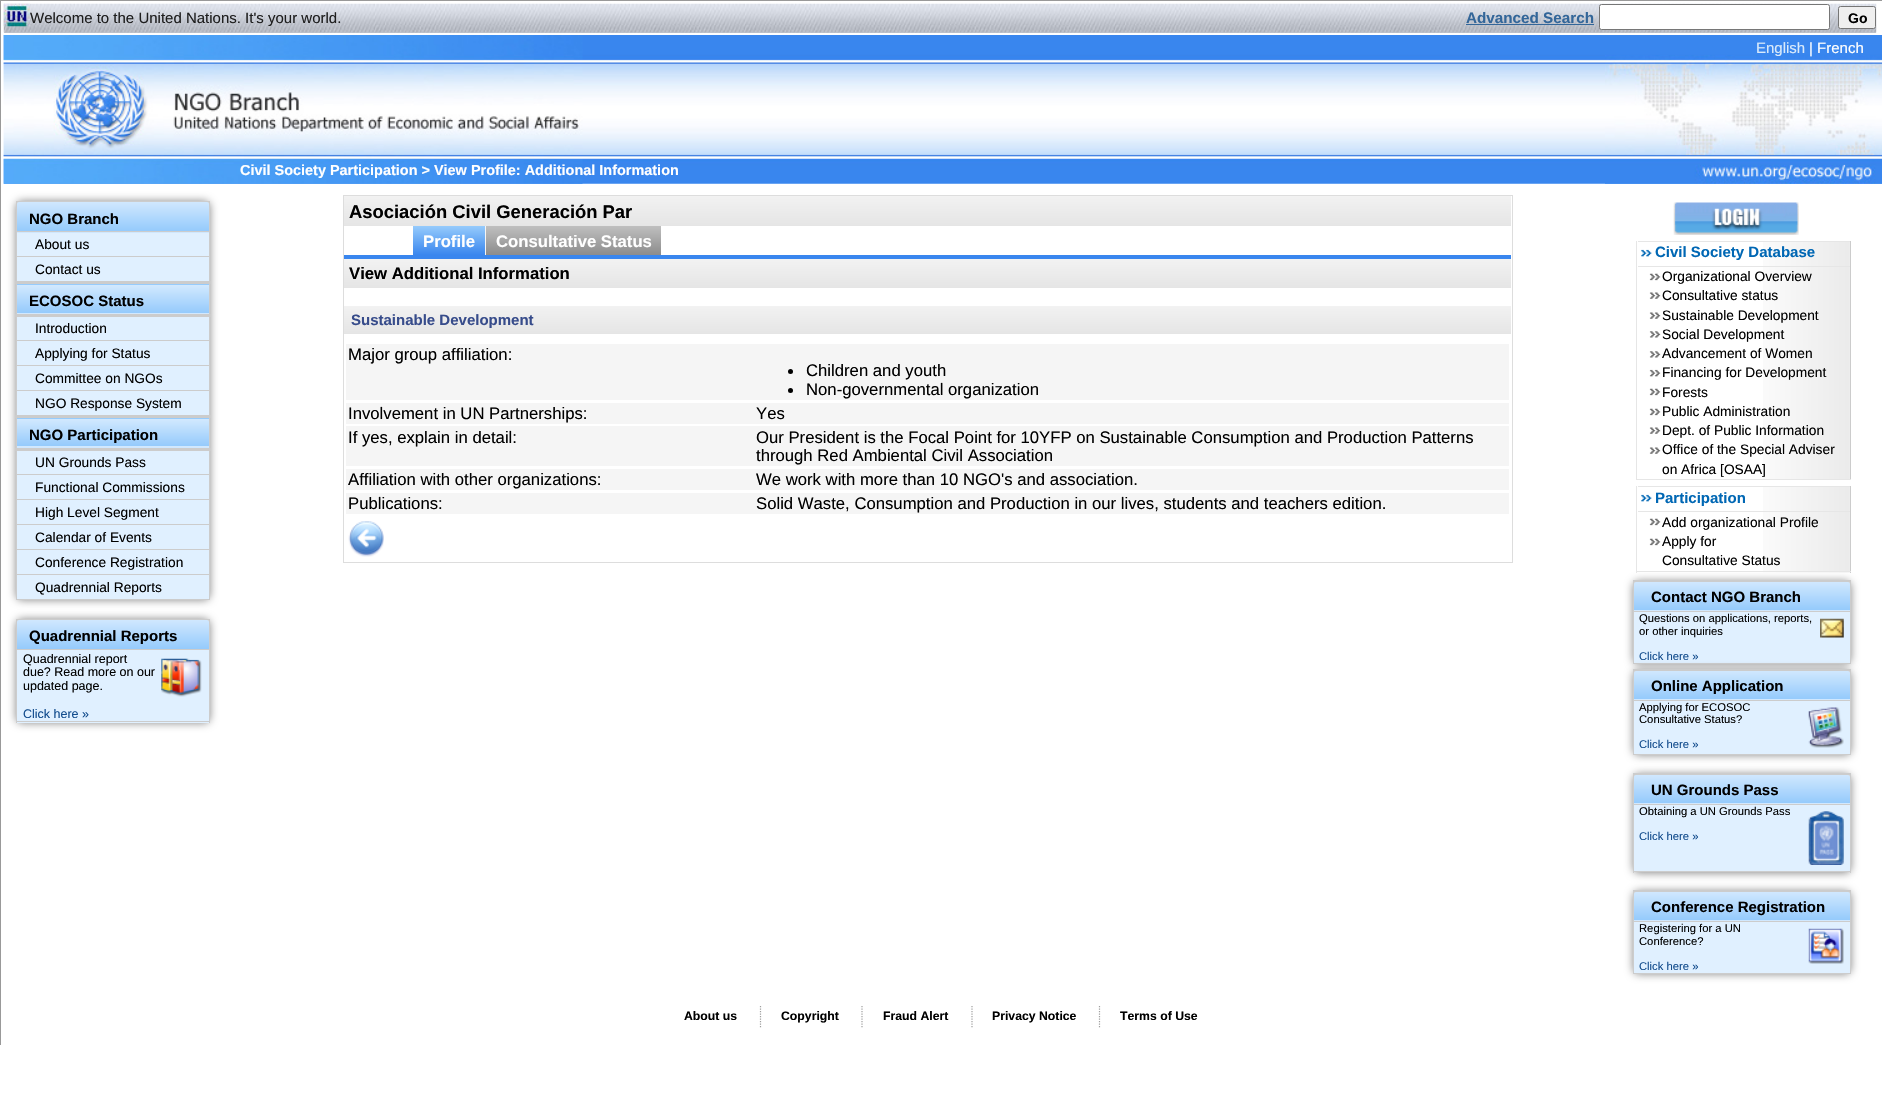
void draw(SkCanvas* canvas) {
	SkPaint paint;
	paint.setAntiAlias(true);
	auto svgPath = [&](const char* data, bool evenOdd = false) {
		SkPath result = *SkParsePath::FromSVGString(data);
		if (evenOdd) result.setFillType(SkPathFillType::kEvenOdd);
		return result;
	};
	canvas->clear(0xffffffff);
	paint.setColor(0xff999999);
	canvas->drawRect(SkRect::MakeXYWH(0, 0, 1882, 1), paint);
	canvas->drawRect(SkRect::MakeXYWH(0, 0, 1, 1045), paint);
	paint.setColor(0xffc2c6cf);
	canvas->drawRect(SkRect::MakeXYWH(4, 32, 1872, 1), paint);
	canvas->drawImageRect(SkImages::DeferredFromEncodedData(SkData::MakeFromFileName("img1.png")), SkRect::MakeXYWH(3, 3, 1874, 30), SkSamplingOptions());
	canvas->drawImageRect(SkImages::DeferredFromEncodedData(SkData::MakeFromFileName("img2.png")), SkRect::MakeXYWH(3, 3, 27, 24), SkSamplingOptions());
	SkFont f1(fontMgr->matchFamilyStyle("Liberation Sans", SkFontStyle::Normal()), 15);
	f1.setSubpixel(true);
	paint.setColor(0xff1e1e1e);
	canvas->drawString("Welcome to the United Nations. It's your world.", 30, 23, f1, paint);
	SkFont f2(fontMgr->matchFamilyStyle("Liberation Sans", SkFontStyle::Bold()), 15.25);
	f2.setSubpixel(true);
	paint.setColor(0xff336699);
	canvas->drawString("Advanced Search", 1466, 23, f2, paint);
	canvas->drawRect(SkRect::MakeXYWH(1466, 24, 128, 1), paint);
	paint.setColor(0xffffffff);
	canvas->drawRoundRect(SkRect::MakeXYWH(1599.5, 4.5, 230, 25), 2, 2, paint);
	paint.setStroke(true);
	paint.setStrokeWidth(1);
	paint.setColor(0xff767676);
	canvas->drawRoundRect(SkRect::MakeXYWH(1599.5, 4.5, 230, 25), 2, 2, paint);
	paint.setStroke(false);
	paint.setColor(0xffefefef);
	canvas->drawRoundRect(SkRect::MakeXYWH(1838.5, 6.5, 37, 22), 2, 2, paint);
	paint.setStroke(true);
	paint.setColor(0xff767676);
	canvas->drawRoundRect(SkRect::MakeXYWH(1838.5, 6.5, 37, 22), 2, 2, paint);
	SkFont f3(fontMgr->matchFamilyStyle("Liberation Sans", SkFontStyle::Bold()), 14);
	f3.setSubpixel(true);
	paint.setStroke(false);
	paint.setColor(0xff000000);
	canvas->drawString("Go", 1848, 23, f3, paint);
	canvas->drawImageRect(SkImages::DeferredFromEncodedData(SkData::MakeFromFileName("img3.png")), SkRect::MakeXYWH(3, 35, 1879, 149), SkSamplingOptions());
	canvas->drawImageRect(SkImages::DeferredFromEncodedData(SkData::MakeFromFileName("img4.png")), SkRect::MakeXYWH(3, 35, 580, 149), SkSamplingOptions());
	canvas->drawImageRect(SkImages::DeferredFromEncodedData(SkData::MakeFromFileName("img5.png")), SkRect::MakeXYWH(1605, 55, 277, 129), SkSamplingOptions());
	paint.setColor(0xffd9eafb);
	canvas->drawString("English", 1756, 53, f1, paint);
	paint.setColor(0xffffffff);
	canvas->drawString("| French", 1809, 53, f1, paint);
	SkFont f4(fontMgr->matchFamilyStyle("Liberation Sans", SkFontStyle::Bold()), 14.45);
	f4.setSubpixel(true);
	canvas->drawString("Civil Society Participation > View Profile: Additional Information", 240, 175, f4, paint);
	paint.setColor(0xff888888);
	paint.setMaskFilter(SkMaskFilter::MakeBlur(kNormal_SkBlurStyle, 4.5));
	canvas->drawRoundRect(SkRect::MakeXYWH(16, 201, 194, 399), 6, 6, paint);
	paint.setMaskFilter(nullptr);
	{
		const SkColor colors[] = {0xffd2e9fe, 0xff95cafc};
		const float stops[] = {0, 1};
		const SkPoint ends[] = {{113, 201}, {113, 231}};
		paint.setShader(SkGradientShader::MakeLinear(ends, colors, stops, 2, SkTileMode::kClamp));
		paint.setAlpha(255);
	}
	canvas->drawPath(svgPath("M22 201H204C207.5 201 210 203.5 210 207V231H16V207C16 203.5 18.5 201 22 201Z"), paint);
	paint.setShader(nullptr);
	paint.setColor(0xffcccccc);
	canvas->drawRect(SkRect::MakeXYWH(16, 201, 194, 1), paint);
	{
		const SkColor colors[] = {0xffd2e9fe, 0xff95cafc};
		const float stops[] = {0, 1};
		const SkPoint ends[] = {{113, 231}, {113, 261}};
		paint.setShader(SkGradientShader::MakeLinear(ends, colors, stops, 2, SkTileMode::kClamp));
		paint.setAlpha(255);
	}
	canvas->drawRect(SkRect::MakeXYWH(16, 232, 194, 1), paint);
	{
		const SkColor colors[] = {0xffd2e9fe, 0xff95cafc};
		const float stops[] = {0, 1};
		const SkPoint ends[] = {{113, 258}, {113, 285}};
		paint.setShader(SkGradientShader::MakeLinear(ends, colors, stops, 2, SkTileMode::kClamp));
		paint.setAlpha(255);
	}
	canvas->drawRect(SkRect::MakeXYWH(16, 284, 194, 1), paint);
	{
		const SkColor colors[] = {0xffd2e9fe, 0xff95cafc};
		const float stops[] = {0, 1};
		const SkPoint ends[] = {{113, 313}, {113, 340}};
		paint.setShader(SkGradientShader::MakeLinear(ends, colors, stops, 2, SkTileMode::kClamp));
		paint.setAlpha(255);
	}
	canvas->drawRect(SkRect::MakeXYWH(16, 313, 194, 1), paint);
	{
		const SkColor colors[] = {0xffd2e9fe, 0xff95cafc};
		const float stops[] = {0, 1};
		const SkPoint ends[] = {{113, 391}, {113, 419}};
		paint.setShader(SkGradientShader::MakeLinear(ends, colors, stops, 2, SkTileMode::kClamp));
		paint.setAlpha(255);
	}
	canvas->drawRect(SkRect::MakeXYWH(16, 418, 194, 1), paint);
	{
		const SkColor colors[] = {0xffd2e9fe, 0xff95cafc};
		const float stops[] = {0, 1};
		const SkPoint ends[] = {{113, 446}, {113, 474}};
		paint.setShader(SkGradientShader::MakeLinear(ends, colors, stops, 2, SkTileMode::kClamp));
		paint.setAlpha(255);
	}
	canvas->drawRect(SkRect::MakeXYWH(16, 446, 194, 2), paint);
	paint.setShader(nullptr);
	paint.setColor(0xffcccccc);
	canvas->drawRect(SkRect::MakeXYWH(209, 201, 1, 399), paint);
	canvas->drawRect(SkRect::MakeXYWH(16, 599, 194, 1), paint);
	canvas->drawRect(SkRect::MakeXYWH(16, 201, 1, 399), paint);
	SkFont f5(fontMgr->matchFamilyStyle("Liberation Sans", SkFontStyle::Bold()), 15);
	f5.setSubpixel(true);
	paint.setColor(0xff000000);
	canvas->drawString("NGO Branch", 29, 224, f5, paint);
	paint.setColor(0xffcccccc);
	canvas->drawRect(SkRect::MakeXYWH(16, 231, 194, 1), paint);
	paint.setColor(0xffe0f0ff);
	canvas->drawRect(SkRect::MakeXYWH(17, 233, 192, 48), paint);
	SkFont f6(fontMgr->matchFamilyStyle("Liberation Sans", SkFontStyle::Normal()), 13.75);
	f6.setSubpixel(true);
	paint.setColor(0xff000000);
	canvas->drawString("About us", 35, 249, f6, paint);
	paint.setColor(0xffcccccc);
	canvas->drawRect(SkRect::MakeXYWH(16, 256, 194, 1), paint);
	paint.setColor(0xff000000);
	canvas->drawString("Contact us", 35, 274, f6, paint);
	{
		const SkColor colors[] = {0xffd2e9fe, 0xff95cafc};
		const float stops[] = {0, 1};
		const SkPoint ends[] = {{113, 285}, {113, 313}};
		paint.setShader(SkGradientShader::MakeLinear(ends, colors, stops, 2, SkTileMode::kClamp));
		paint.setAlpha(255);
	}
	canvas->drawRect(SkRect::MakeXYWH(17, 285, 192, 28), paint);
	paint.setShader(nullptr);
	paint.setColor(0xffcccccc);
	canvas->drawRect(SkRect::MakeXYWH(15, 281, 196, 3), paint);
	canvas->drawRect(SkRect::MakeXYWH(15, 314, 196, 3), paint);
	paint.setColor(0xff000000);
	canvas->drawString("ECOSOC Status", 29, 306, f5, paint);
	paint.setColor(0xffe0f0ff);
	canvas->drawRect(SkRect::MakeXYWH(17, 317, 192, 23), paint);
	paint.setColor(0xff000000);
	canvas->drawString("Introduction", 35, 333, f6, paint);
	paint.setColor(0xffcccccc);
	canvas->drawRect(SkRect::MakeXYWH(16, 340, 194, 1), paint);
	paint.setColor(0xffe0f0ff);
	canvas->drawRect(SkRect::MakeXYWH(17, 341, 192, 24), paint);
	paint.setColor(0xff000000);
	canvas->drawString("Applying for Status", 35, 358, f6, paint);
	paint.setColor(0xffcccccc);
	canvas->drawRect(SkRect::MakeXYWH(16, 365, 194, 1), paint);
	paint.setColor(0xffe0f0ff);
	canvas->drawRect(SkRect::MakeXYWH(17, 366, 192, 24), paint);
	paint.setColor(0xff000000);
	canvas->drawString("Committee on NGOs", 35, 383, f6, paint);
	paint.setColor(0xffcccccc);
	canvas->drawRect(SkRect::MakeXYWH(16, 390, 194, 1), paint);
	paint.setColor(0xffe0f0ff);
	canvas->drawRect(SkRect::MakeXYWH(17, 391, 192, 24), paint);
	paint.setColor(0xff000000);
	canvas->drawString("NGO Response System", 35, 408, f6, paint);
	{
		const SkColor colors[] = {0xffd2e9fe, 0xff95cafc};
		const float stops[] = {0, 1};
		const SkPoint ends[] = {{113, 419}, {113, 446}};
		paint.setShader(SkGradientShader::MakeLinear(ends, colors, stops, 2, SkTileMode::kClamp));
		paint.setAlpha(255);
	}
	canvas->drawRect(SkRect::MakeXYWH(17, 419, 192, 27), paint);
	paint.setShader(nullptr);
	paint.setColor(0xffcccccc);
	canvas->drawRect(SkRect::MakeXYWH(15, 415, 196, 3), paint);
	canvas->drawRect(SkRect::MakeXYWH(15, 448, 196, 3), paint);
	paint.setColor(0xff000000);
	canvas->drawString("NGO Participation", 29, 440, f5, paint);
	paint.setColor(0xffe0f0ff);
	canvas->drawRect(SkRect::MakeXYWH(17, 451, 192, 23), paint);
	paint.setColor(0xff000000);
	canvas->drawString("UN Grounds Pass", 35, 467, f6, paint);
	paint.setColor(0xffcccccc);
	canvas->drawRect(SkRect::MakeXYWH(16, 474, 194, 1), paint);
	paint.setColor(0xffe0f0ff);
	canvas->drawRect(SkRect::MakeXYWH(17, 475, 192, 24), paint);
	paint.setColor(0xff000000);
	canvas->drawString("Functional Commissions", 35, 492, f6, paint);
	paint.setColor(0xffcccccc);
	canvas->drawRect(SkRect::MakeXYWH(16, 499, 194, 1), paint);
	paint.setColor(0xffe0f0ff);
	canvas->drawRect(SkRect::MakeXYWH(17, 500, 192, 24), paint);
	paint.setColor(0xff000000);
	canvas->drawString("High Level Segment", 35, 517, f6, paint);
	paint.setColor(0xffcccccc);
	canvas->drawRect(SkRect::MakeXYWH(16, 524, 194, 1), paint);
	paint.setColor(0xffe0f0ff);
	canvas->drawRect(SkRect::MakeXYWH(17, 525, 192, 24), paint);
	paint.setColor(0xff000000);
	canvas->drawString("Calendar of Events", 35, 542, f6, paint);
	paint.setColor(0xffcccccc);
	canvas->drawRect(SkRect::MakeXYWH(16, 549, 194, 1), paint);
	paint.setColor(0xffe0f0ff);
	canvas->drawRect(SkRect::MakeXYWH(17, 550, 192, 24), paint);
	paint.setColor(0xff000000);
	canvas->drawString("Conference Registration", 35, 567, f6, paint);
	paint.setColor(0xffcccccc);
	canvas->drawRect(SkRect::MakeXYWH(16, 574, 194, 1), paint);
	paint.setColor(0xffe0f0ff);
	canvas->drawRect(SkRect::MakeXYWH(17, 575, 192, 24), paint);
	paint.setColor(0xff000000);
	canvas->drawString("Quadrennial Reports", 35, 592, f6, paint);
	paint.setColor(0xff888888);
	paint.setMaskFilter(SkMaskFilter::MakeBlur(kNormal_SkBlurStyle, 4.5));
	canvas->drawRoundRect(SkRect::MakeXYWH(16, 619, 194, 104), 6, 6, paint);
	paint.setMaskFilter(nullptr);
	{
		const SkColor colors[] = {0xffd2e9fe, 0xff95cafc};
		const float stops[] = {0, 1};
		const SkPoint ends[] = {{113, 619}, {113, 649}};
		paint.setShader(SkGradientShader::MakeLinear(ends, colors, stops, 2, SkTileMode::kClamp));
		paint.setAlpha(255);
	}
	canvas->drawPath(svgPath("M22 619H204C207.5 619 210 621.5 210 625V649H16V625C16 621.5 18.5 619 22 619Z"), paint);
	paint.setShader(nullptr);
	paint.setColor(0xffcccccc);
	canvas->drawRect(SkRect::MakeXYWH(16, 619, 194, 1), paint);
	canvas->drawRect(SkRect::MakeXYWH(209, 619, 1, 104), paint);
	paint.setColor(0xffe0f0ff);
	canvas->drawRect(SkRect::MakeXYWH(17, 650, 192, 73), paint);
	paint.setColor(0xffcccccc);
	canvas->drawRect(SkRect::MakeXYWH(16, 721, 194, 1), paint);
	canvas->drawRect(SkRect::MakeXYWH(16, 619, 1, 104), paint);
	paint.setColor(0xff000000);
	canvas->drawString("Quadrennial Reports", 29, 641, f5, paint);
	paint.setColor(0xffcccccc);
	canvas->drawRect(SkRect::MakeXYWH(16, 649, 194, 1), paint);
	SkFont f7(fontMgr->matchFamilyStyle("Liberation Sans", SkFontStyle::Normal()), 12.5);
	f7.setSubpixel(true);
	paint.setColor(0xff000000);
	canvas->drawString("Quadrennial report", 23, 663, f7, paint);
	canvas->drawImageRect(SkImages::DeferredFromEncodedData(SkData::MakeFromFileName("img6.png")), SkRect::MakeXYWH(161, 658, 41, 39), SkSamplingOptions());
	canvas->drawString("due? Read more on our", 23, 676, f7, paint);
	canvas->drawString("updated page.", 23, 690, f7, paint);
	paint.setColor(0xff124c8d);
	canvas->drawString("Click here »", 23, 718, f7, paint);
	paint.setStroke(true);
	paint.setColor(0xffdddddd);
	canvas->drawRect(SkRect::MakeXYWH(343.5, 195.5, 1169, 367), paint);
	paint.setStroke(false);
	{
		const SkColor colors[] = {0xfff2f2f2, 0xffe5e5e5};
		const float stops[] = {0, 1};
		const SkPoint ends[] = {{928, 196}, {928, 226}};
		paint.setShader(SkGradientShader::MakeLinear(ends, colors, stops, 2, SkTileMode::kClamp));
		paint.setAlpha(255);
	}
	canvas->drawRect(SkRect::MakeXYWH(344, 196, 1167, 30), paint);
	SkFont f8(fontMgr->matchFamilyStyle("Liberation Sans", SkFontStyle::Bold()), 18.4);
	f8.setSubpixel(true);
	paint.setShader(nullptr);
	paint.setColor(0xff000000);
	canvas->drawString("Asociación Civil Generación Par", 349, 218, f8, paint);
	paint.setColor(0xff3986ee);
	canvas->drawRect(SkRect::MakeXYWH(344, 255, 1167, 4), paint);
	{
		const SkColor colors[] = {0xff96cbfc, 0xff3986ee};
		const float stops[] = {0, 1};
		const SkPoint ends[] = {{449, 226}, {449, 255}};
		paint.setShader(SkGradientShader::MakeLinear(ends, colors, stops, 2, SkTileMode::kClamp));
		paint.setAlpha(255);
	}
	canvas->drawRect(SkRect::MakeXYWH(413, 226, 72, 29), paint);
	paint.setShader(nullptr);
	paint.setColor(0xfff5f5f5);
	canvas->drawRect(SkRect::MakeXYWH(485, 226, 1, 29), paint);
	SkFont f9(fontMgr->matchFamilyStyle("Liberation Sans", SkFontStyle::Bold()), 16.7);
	f9.setSubpixel(true);
	paint.setColor(0xffffffff);
	canvas->drawString("Profile", 423, 247, f9, paint);
	{
		const SkColor colors[] = {0xffbfbfbf, 0xff8c8c8c};
		const float stops[] = {0, 1};
		const SkPoint ends[] = {{574, 226}, {574, 255}};
		paint.setShader(SkGradientShader::MakeLinear(ends, colors, stops, 2, SkTileMode::kClamp));
		paint.setAlpha(255);
	}
	canvas->drawRect(SkRect::MakeXYWH(486, 226, 175, 29), paint);
	paint.setShader(nullptr);
	paint.setColor(0xffffffff);
	canvas->drawString("Consultative Status", 496, 247, f9, paint);
	{
		const SkColor colors[] = {0xfff2f2f2, 0xffe5e5e5};
		const float stops[] = {0, 1};
		const SkPoint ends[] = {{928, 259}, {928, 288}};
		paint.setShader(SkGradientShader::MakeLinear(ends, colors, stops, 2, SkTileMode::kClamp));
		paint.setAlpha(255);
	}
	canvas->drawRect(SkRect::MakeXYWH(344, 259, 1167, 29), paint);
	paint.setShader(nullptr);
	paint.setColor(0xff000000);
	canvas->drawString("View Additional Information", 349, 279, f9, paint);
	{
		const SkColor colors[] = {0xfff2f2f2, 0xffe5e5e5};
		const float stops[] = {0, 1};
		const SkPoint ends[] = {{928, 306}, {928, 334}};
		paint.setShader(SkGradientShader::MakeLinear(ends, colors, stops, 2, SkTileMode::kClamp));
		paint.setAlpha(255);
	}
	canvas->drawRect(SkRect::MakeXYWH(344, 306, 1167, 28), paint);
	paint.setShader(nullptr);
	paint.setColor(0xff374c8b);
	canvas->drawString("Sustainable Development", 351, 325, f5, paint);
	paint.setColor(0xfff5f5f5);
	canvas->drawRect(SkRect::MakeXYWH(346, 344, 1163, 56), paint);
	SkFont f10(fontMgr->matchFamilyStyle("Liberation Sans", SkFontStyle::Normal()), 16.7);
	f10.setSubpixel(true);
	paint.setColor(0xff000000);
	canvas->drawString("Major group affiliation:", 348, 360, f10, paint);
	canvas->drawCircle(790.5, 371.5, 2.5, paint);
	canvas->drawString("Children and youth", 806, 376, f10, paint);
	canvas->drawCircle(790.5, 390.5, 2.5, paint);
	canvas->drawString("Non-governmental organization", 806, 395, f10, paint);
	paint.setColor(0xfff5f5f5);
	canvas->drawRect(SkRect::MakeXYWH(346, 403, 1163, 21), paint);
	paint.setColor(0xff000000);
	canvas->drawString("Involvement in UN Partnerships:", 348, 419, f10, paint);
	canvas->drawString("Yes", 756, 419, f10, paint);
	paint.setColor(0xfff5f5f5);
	canvas->drawRect(SkRect::MakeXYWH(346, 426, 1163, 40), paint);
	paint.setColor(0xff000000);
	canvas->drawString("If yes, explain in detail:", 348, 443, f10, paint);
	canvas->drawString("Our President is the Focal Point for 10YFP on Sustainable Consumption and Production Patterns", 756, 443, f10, paint);
	canvas->drawString("through Red Ambiental Civil Association", 756, 461, f10, paint);
	paint.setColor(0xfff5f5f5);
	canvas->drawRect(SkRect::MakeXYWH(346, 469, 1163, 21), paint);
	paint.setColor(0xff000000);
	canvas->drawString("Affiliation with other organizations:", 348, 485, f10, paint);
	canvas->drawString("We work with more than 10 NGO's and association.", 756, 485, f10, paint);
	paint.setColor(0xfff5f5f5);
	canvas->drawRect(SkRect::MakeXYWH(346, 493, 1163, 21), paint);
	paint.setColor(0xff000000);
	canvas->drawString("Publications:", 348, 509, f10, paint);
	canvas->drawString("Solid Waste, Consumption and Production in our lives, students and teachers edition.", 756, 509, f10, paint);
	canvas->drawImageRect(SkImages::DeferredFromEncodedData(SkData::MakeFromFileName("img7.png")), SkRect::MakeXYWH(348, 521, 36, 36), SkSamplingOptions());
	canvas->drawImageRect(SkImages::DeferredFromEncodedData(SkData::MakeFromFileName("img8.png")), SkRect::MakeXYWH(1673, 202, 126, 33), SkSamplingOptions());
	canvas->drawImageRect(SkImages::DeferredFromEncodedData(SkData::MakeFromFileName("img9.png")), SkRect::MakeXYWH(1763, 242, 87, 237), SkSamplingOptions());
	paint.setColor(0xffcccccc);
	canvas->drawRect(SkRect::MakeXYWH(1850, 241, 1, 239), paint);
	paint.setColor(0xffe6e6e6);
	canvas->drawRect(SkRect::MakeXYWH(1636, 479, 215, 1), paint);
	canvas->drawRect(SkRect::MakeXYWH(1636, 241, 1, 239), paint);
	canvas->drawRect(SkRect::MakeXYWH(1638, 241, 212, 1), paint);
	canvas->drawRect(SkRect::MakeXYWH(1638, 266, 212, 1), paint);
	canvas->drawImageRect(SkImages::DeferredFromEncodedData(SkData::MakeFromFileName("img10.png")), SkRect::MakeXYWH(1641, 249, 11, 8), SkSamplingOptions());
	paint.setColor(0xff0067b4);
	canvas->drawString("Civil Society Database", 1655, 257, f5, paint);
	canvas->drawImageRect(SkImages::DeferredFromEncodedData(SkData::MakeFromFileName("img11.png")), SkRect::MakeXYWH(1649, 273, 12, 8), SkSamplingOptions());
	paint.setColor(0xff000000);
	canvas->drawString("Organizational Overview", 1662, 281, f6, paint);
	canvas->drawImageRect(SkImages::DeferredFromEncodedData(SkData::MakeFromFileName("img12.png")), SkRect::MakeXYWH(1649, 292, 12, 7), SkSamplingOptions());
	canvas->drawString("Consultative status", 1662, 300, f6, paint);
	canvas->drawImageRect(SkImages::DeferredFromEncodedData(SkData::MakeFromFileName("img13.png")), SkRect::MakeXYWH(1649, 312, 12, 7), SkSamplingOptions());
	canvas->drawString("Sustainable Development", 1662, 320, f6, paint);
	canvas->drawImageRect(SkImages::DeferredFromEncodedData(SkData::MakeFromFileName("img14.png")), SkRect::MakeXYWH(1649, 331, 12, 7), SkSamplingOptions());
	canvas->drawString("Social Development", 1662, 339, f6, paint);
	canvas->drawImageRect(SkImages::DeferredFromEncodedData(SkData::MakeFromFileName("img14.png")), SkRect::MakeXYWH(1649, 351, 12, 7), SkSamplingOptions());
	canvas->drawString("Advancement of Women", 1662, 358, f6, paint);
	canvas->drawImageRect(SkImages::DeferredFromEncodedData(SkData::MakeFromFileName("img15.png")), SkRect::MakeXYWH(1649, 369, 12, 8), SkSamplingOptions());
	canvas->drawString("Financing for Development", 1662, 377, f6, paint);
	canvas->drawImageRect(SkImages::DeferredFromEncodedData(SkData::MakeFromFileName("img11.png")), SkRect::MakeXYWH(1649, 388, 12, 8), SkSamplingOptions());
	canvas->drawString("Forests", 1662, 397, f6, paint);
	canvas->drawImageRect(SkImages::DeferredFromEncodedData(SkData::MakeFromFileName("img11.png")), SkRect::MakeXYWH(1649, 408, 12, 8), SkSamplingOptions());
	canvas->drawString("Public Administration", 1662, 416, f6, paint);
	canvas->drawImageRect(SkImages::DeferredFromEncodedData(SkData::MakeFromFileName("img13.png")), SkRect::MakeXYWH(1649, 427, 12, 7), SkSamplingOptions());
	canvas->drawString("Dept. of Public Information", 1662, 435, f6, paint);
	canvas->drawImageRect(SkImages::DeferredFromEncodedData(SkData::MakeFromFileName("img13.png")), SkRect::MakeXYWH(1649, 447, 12, 7), SkSamplingOptions());
	canvas->drawString("Office of the Special Adviser", 1662, 454, f6, paint);
	canvas->drawString("on Africa [OSAA]", 1662, 474, f6, paint);
	paint.setColor(0xff888888);
	paint.setMaskFilter(SkMaskFilter::MakeBlur(kNormal_SkBlurStyle, 4.5));
	canvas->drawRoundRect(SkRect::MakeXYWH(1633, 581, 218, 83), 6, 6, paint);
	paint.setMaskFilter(nullptr);
	canvas->drawImageRect(SkImages::DeferredFromEncodedData(SkData::MakeFromFileName("img16.png")), SkRect::MakeXYWH(1763, 487, 87, 86), SkSamplingOptions());
	paint.setColor(0xffcccccc);
	canvas->drawRect(SkRect::MakeXYWH(1850, 486, 1, 87), paint);
	paint.setColor(0xffe6e6e6);
	canvas->drawRect(SkRect::MakeXYWH(1636, 571, 215, 1), paint);
	canvas->drawRect(SkRect::MakeXYWH(1636, 486, 1, 87), paint);
	canvas->drawRect(SkRect::MakeXYWH(1638, 486, 212, 1), paint);
	canvas->drawRect(SkRect::MakeXYWH(1638, 511, 212, 1), paint);
	canvas->drawImageRect(SkImages::DeferredFromEncodedData(SkData::MakeFromFileName("img10.png")), SkRect::MakeXYWH(1641, 494, 11, 8), SkSamplingOptions());
	paint.setColor(0xff0067b4);
	canvas->drawString("Participation", 1655, 503, f5, paint);
	canvas->drawImageRect(SkImages::DeferredFromEncodedData(SkData::MakeFromFileName("img11.png")), SkRect::MakeXYWH(1649, 518, 12, 8), SkSamplingOptions());
	paint.setColor(0xff000000);
	canvas->drawString("Add organizational Profile", 1662, 527, f6, paint);
	canvas->drawImageRect(SkImages::DeferredFromEncodedData(SkData::MakeFromFileName("img11.png")), SkRect::MakeXYWH(1649, 538, 12, 8), SkSamplingOptions());
	canvas->drawString("Apply for", 1662, 546, f6, paint);
	canvas->drawString("Consultative Status", 1662, 565, f6, paint);
	{
		const SkColor colors[] = {0xffd2e9fe, 0xff95cafc};
		const float stops[] = {0, 1};
		const SkPoint ends[] = {{1742, 581}, {1742, 610}};
		paint.setShader(SkGradientShader::MakeLinear(ends, colors, stops, 2, SkTileMode::kClamp));
		paint.setAlpha(255);
	}
	canvas->drawPath(svgPath("M1639 581H1845C1848.5 581 1851 583.5 1851 587V610H1633V587C1633 583.5 1635.5 581 1639 581Z"), paint);
	paint.setShader(nullptr);
	paint.setColor(0xffcccccc);
	canvas->drawRect(SkRect::MakeXYWH(1633, 580, 218, 2), paint);
	{
		const SkColor colors[] = {0xffd2e9fe, 0xff95cafc};
		const float stops[] = {0, 1};
		const SkPoint ends[] = {{1742, 610}, {1742, 639}};
		paint.setShader(SkGradientShader::MakeLinear(ends, colors, stops, 2, SkTileMode::kClamp));
		paint.setAlpha(255);
	}
	canvas->drawRect(SkRect::MakeXYWH(1633, 610, 218, 1), paint);
	paint.setShader(nullptr);
	paint.setColor(0xffcccccc);
	canvas->drawRect(SkRect::MakeXYWH(1850, 581, 1, 83), paint);
	canvas->drawRect(SkRect::MakeXYWH(1633, 663, 218, 1), paint);
	canvas->drawRect(SkRect::MakeXYWH(1633, 581, 1, 83), paint);
	paint.setColor(0xff000000);
	canvas->drawString("Contact NGO Branch", 1651, 602, f5, paint);
	paint.setColor(0xffcccccc);
	canvas->drawRect(SkRect::MakeXYWH(1633, 611, 218, 1), paint);
	paint.setColor(0xffe0f0ff);
	canvas->drawRect(SkRect::MakeXYWH(1634, 612, 216, 51), paint);
	SkFont f11(fontMgr->matchFamilyStyle("Liberation Sans", SkFontStyle::Normal()), 11.25);
	f11.setSubpixel(true);
	paint.setColor(0xff000000);
	canvas->drawString("Questions on applications, reports,", 1639, 622, f11, paint);
	canvas->drawImageRect(SkImages::DeferredFromEncodedData(SkData::MakeFromFileName("img17.png")), SkRect::MakeXYWH(1820, 618, 24, 20), SkSamplingOptions());
	canvas->drawString("or other inquiries", 1639, 635, f11, paint);
	paint.setColor(0xff888888);
	paint.setMaskFilter(SkMaskFilter::MakeBlur(kNormal_SkBlurStyle, 4.5));
	canvas->drawRoundRect(SkRect::MakeXYWH(1633, 670, 218, 85), 6, 6, paint);
	paint.setMaskFilter(nullptr);
	paint.setColor(0xff124c8d);
	canvas->drawString("Click here »", 1639, 660, f11, paint);
	{
		const SkColor colors[] = {0xffd2e9fe, 0xff95cafc};
		const float stops[] = {0, 1};
		const SkPoint ends[] = {{1742, 670}, {1742, 699}};
		paint.setShader(SkGradientShader::MakeLinear(ends, colors, stops, 2, SkTileMode::kClamp));
		paint.setAlpha(255);
	}
	canvas->drawPath(svgPath("M1639 670H1845C1848.5 670 1851 672.5 1851 676V699H1633V676C1633 672.5 1635.5 670 1639 670Z"), paint);
	paint.setShader(nullptr);
	paint.setColor(0xffcccccc);
	canvas->drawRect(SkRect::MakeXYWH(1633, 669, 218, 2), paint);
	{
		const SkColor colors[] = {0xffd2e9fe, 0xff95cafc};
		const float stops[] = {0, 1};
		const SkPoint ends[] = {{1742, 699}, {1742, 728}};
		paint.setShader(SkGradientShader::MakeLinear(ends, colors, stops, 2, SkTileMode::kClamp));
		paint.setAlpha(255);
	}
	canvas->drawRect(SkRect::MakeXYWH(1633, 699, 218, 1), paint);
	paint.setShader(nullptr);
	paint.setColor(0xffcccccc);
	canvas->drawRect(SkRect::MakeXYWH(1850, 670, 1, 85), paint);
	canvas->drawRect(SkRect::MakeXYWH(1633, 754, 218, 1), paint);
	canvas->drawRect(SkRect::MakeXYWH(1633, 670, 1, 85), paint);
	paint.setColor(0xff000000);
	canvas->drawString("Online Application", 1651, 691, f5, paint);
	paint.setColor(0xffcccccc);
	canvas->drawRect(SkRect::MakeXYWH(1633, 700, 218, 1), paint);
	paint.setColor(0xffe0f0ff);
	canvas->drawRect(SkRect::MakeXYWH(1634, 701, 216, 53), paint);
	paint.setColor(0xff000000);
	canvas->drawString("Applying for ECOSOC", 1639, 711, f11, paint);
	canvas->drawImageRect(SkImages::DeferredFromEncodedData(SkData::MakeFromFileName("img18.png")), SkRect::MakeXYWH(1808, 707, 36, 41), SkSamplingOptions());
	canvas->drawString("Consultative Status?", 1639, 723, f11, paint);
	paint.setColor(0xff124c8d);
	canvas->drawString("Click here »", 1639, 748, f11, paint);
	paint.setColor(0xff888888);
	paint.setMaskFilter(SkMaskFilter::MakeBlur(kNormal_SkBlurStyle, 4.5));
	canvas->drawRoundRect(SkRect::MakeXYWH(1633, 774, 218, 99), 6, 6, paint);
	paint.setMaskFilter(nullptr);
	{
		const SkColor colors[] = {0xffd2e9fe, 0xff95cafc};
		const float stops[] = {0, 1};
		const SkPoint ends[] = {{1742, 774}, {1742, 803}};
		paint.setShader(SkGradientShader::MakeLinear(ends, colors, stops, 2, SkTileMode::kClamp));
		paint.setAlpha(255);
	}
	canvas->drawPath(svgPath("M1639 774H1845C1848.5 774 1851 776.5 1851 780V803H1633V780C1633 776.5 1635.5 774 1639 774Z"), paint);
	paint.setShader(nullptr);
	paint.setColor(0xffcccccc);
	canvas->drawRect(SkRect::MakeXYWH(1633, 773, 218, 2), paint);
	{
		const SkColor colors[] = {0xffd2e9fe, 0xff95cafc};
		const float stops[] = {0, 1};
		const SkPoint ends[] = {{1742, 803}, {1742, 831}};
		paint.setShader(SkGradientShader::MakeLinear(ends, colors, stops, 2, SkTileMode::kClamp));
		paint.setAlpha(255);
	}
	canvas->drawRect(SkRect::MakeXYWH(1633, 803, 218, 1), paint);
	paint.setShader(nullptr);
	paint.setColor(0xffcccccc);
	canvas->drawRect(SkRect::MakeXYWH(1850, 774, 1, 99), paint);
	canvas->drawRect(SkRect::MakeXYWH(1633, 871, 218, 1), paint);
	canvas->drawRect(SkRect::MakeXYWH(1633, 774, 1, 99), paint);
	paint.setColor(0xff000000);
	canvas->drawString("UN Grounds Pass", 1651, 795, f5, paint);
	paint.setColor(0xffcccccc);
	canvas->drawRect(SkRect::MakeXYWH(1633, 804, 218, 1), paint);
	paint.setColor(0xffe0f0ff);
	canvas->drawRect(SkRect::MakeXYWH(1634, 805, 216, 66), paint);
	paint.setColor(0xff000000);
	canvas->drawString("Obtaining a UN Grounds Pass", 1639, 815, f11, paint);
	canvas->drawImageRect(SkImages::DeferredFromEncodedData(SkData::MakeFromFileName("img19.png")), SkRect::MakeXYWH(1808, 811, 36, 54), SkSamplingOptions());
	paint.setColor(0xff124c8d);
	canvas->drawString("Click here »", 1639, 840, f11, paint);
	paint.setColor(0xff888888);
	paint.setMaskFilter(SkMaskFilter::MakeBlur(kNormal_SkBlurStyle, 4.5));
	canvas->drawRoundRect(SkRect::MakeXYWH(1633, 891, 218, 83), 6, 6, paint);
	paint.setMaskFilter(nullptr);
	{
		const SkColor colors[] = {0xffd2e9fe, 0xff95cafc};
		const float stops[] = {0, 1};
		const SkPoint ends[] = {{1742, 891}, {1742, 920}};
		paint.setShader(SkGradientShader::MakeLinear(ends, colors, stops, 2, SkTileMode::kClamp));
		paint.setAlpha(255);
	}
	canvas->drawPath(svgPath("M1639 891H1845C1848.5 891 1851 893.5 1851 897V920H1633V897C1633 893.5 1635.5 891 1639 891Z"), paint);
	paint.setShader(nullptr);
	paint.setColor(0xffcccccc);
	canvas->drawRect(SkRect::MakeXYWH(1633, 890, 218, 2), paint);
	{
		const SkColor colors[] = {0xffd2e9fe, 0xff95cafc};
		const float stops[] = {0, 1};
		const SkPoint ends[] = {{1742, 920}, {1742, 949}};
		paint.setShader(SkGradientShader::MakeLinear(ends, colors, stops, 2, SkTileMode::kClamp));
		paint.setAlpha(255);
	}
	canvas->drawRect(SkRect::MakeXYWH(1633, 920, 218, 1), paint);
	paint.setShader(nullptr);
	paint.setColor(0xffcccccc);
	canvas->drawRect(SkRect::MakeXYWH(1850, 891, 1, 83), paint);
	canvas->drawRect(SkRect::MakeXYWH(1633, 973, 218, 1), paint);
	canvas->drawRect(SkRect::MakeXYWH(1633, 891, 1, 83), paint);
	paint.setColor(0xff000000);
	canvas->drawString("Conference Registration", 1651, 912, f5, paint);
	paint.setColor(0xffcccccc);
	canvas->drawRect(SkRect::MakeXYWH(1633, 921, 218, 1), paint);
	paint.setColor(0xffe0f0ff);
	canvas->drawRect(SkRect::MakeXYWH(1634, 922, 216, 51), paint);
	paint.setColor(0xff000000);
	canvas->drawString("Registering for a UN", 1639, 932, f11, paint);
	canvas->drawImageRect(SkImages::DeferredFromEncodedData(SkData::MakeFromFileName("img20.png")), SkRect::MakeXYWH(1808, 928, 36, 36), SkSamplingOptions());
	canvas->drawString("Conference?", 1639, 945, f11, paint);
	paint.setColor(0xff124c8d);
	canvas->drawString("Click here »", 1639, 970, f11, paint);
	SkFont f12(fontMgr->matchFamilyStyle("Liberation Sans", SkFontStyle::Bold()), 12.25);
	f12.setSubpixel(true);
	paint.setColor(0xff000000);
	canvas->drawString("About us", 684, 1020, f12, paint);
	paint.setStroke(true);
	paint.setStrokeWidth(1.2);
	paint.setColor(0xff9e9e9e);
	paint.setPathEffect(SkDashPathEffect::Make({{1.25f, 1.25f}}, 0));
	canvas->drawPath(svgPath("M760.5 1006V1027.5"), paint);
	paint.setPathEffect(nullptr);
	paint.setStroke(false);
	paint.setColor(0xff000000);
	canvas->drawString("Copyright", 781, 1020, f12, paint);
	paint.setStroke(true);
	paint.setColor(0xff9e9e9e);
	paint.setPathEffect(SkDashPathEffect::Make({{1.25f, 1.25f}}, 0));
	canvas->drawPath(svgPath("M862 1006V1027.5"), paint);
	paint.setPathEffect(nullptr);
	paint.setStroke(false);
	paint.setColor(0xff000000);
	canvas->drawString("Fraud Alert", 883, 1020, f12, paint);
	paint.setStroke(true);
	paint.setColor(0xff9e9e9e);
	paint.setPathEffect(SkDashPathEffect::Make({{1.25f, 1.25f}}, 0));
	canvas->drawPath(svgPath("M972 1006V1027.5"), paint);
	paint.setPathEffect(nullptr);
	paint.setStroke(false);
	paint.setColor(0xff000000);
	canvas->drawString("Privacy Notice", 992, 1020, f12, paint);
	paint.setStroke(true);
	paint.setColor(0xff9e9e9e);
	paint.setPathEffect(SkDashPathEffect::Make({{1.25f, 1.25f}}, 0));
	canvas->drawPath(svgPath("M1099.5 1006V1027.5"), paint);
	paint.setPathEffect(nullptr);
	paint.setStroke(false);
	paint.setColor(0xff000000);
	canvas->drawString("Terms of Use", 1120, 1020, f12, paint);
}
